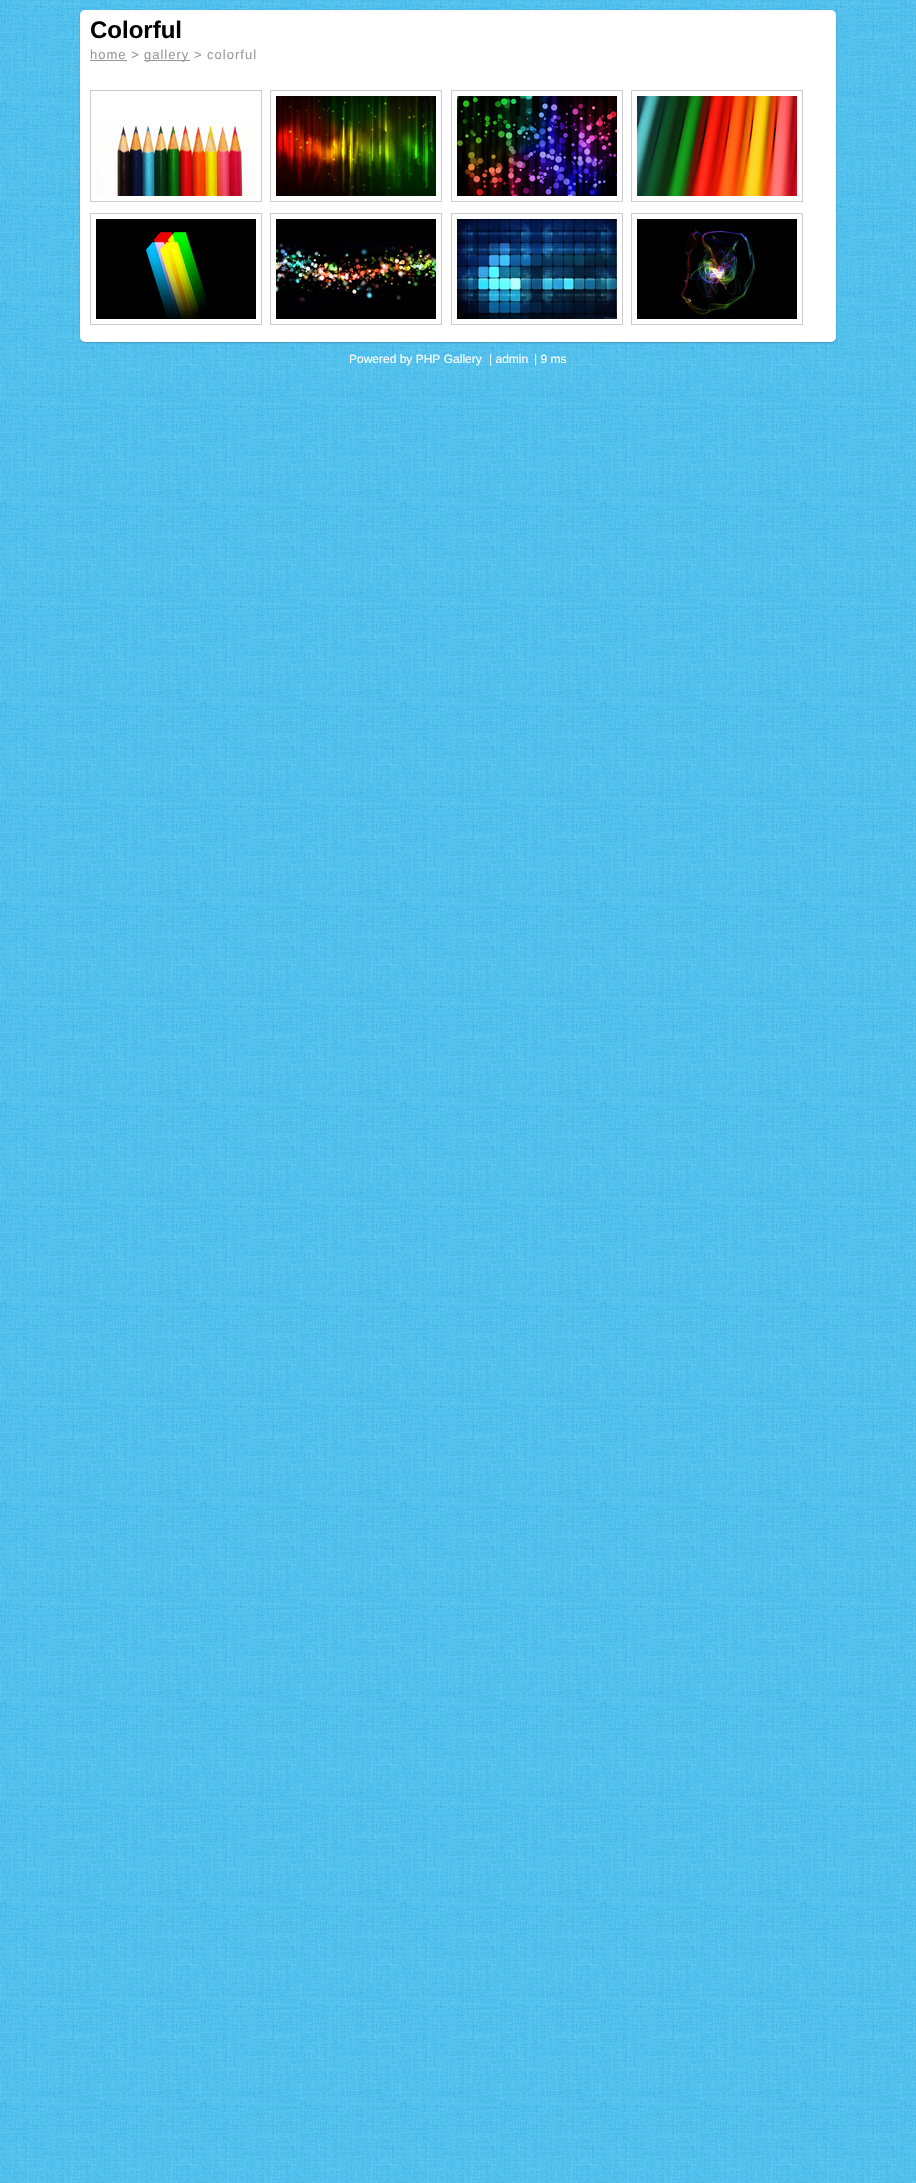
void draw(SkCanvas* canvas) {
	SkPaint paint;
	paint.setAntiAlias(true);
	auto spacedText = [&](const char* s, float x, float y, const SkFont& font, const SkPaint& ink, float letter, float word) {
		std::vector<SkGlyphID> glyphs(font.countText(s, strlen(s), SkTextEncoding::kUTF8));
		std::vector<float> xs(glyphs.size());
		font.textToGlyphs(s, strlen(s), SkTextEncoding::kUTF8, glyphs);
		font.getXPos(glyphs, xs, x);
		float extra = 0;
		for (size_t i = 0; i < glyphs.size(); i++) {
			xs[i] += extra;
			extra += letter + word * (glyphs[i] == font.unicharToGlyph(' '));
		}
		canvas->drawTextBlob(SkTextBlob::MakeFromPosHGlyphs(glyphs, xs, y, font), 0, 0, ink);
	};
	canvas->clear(0xffffffff);
	canvas->drawImageRect(SkImages::DeferredFromEncodedData(SkData::MakeFromFileName("img1.png")), SkRect::MakeXYWH(0, 0, 916, 2183), SkSamplingOptions());
	paint.setColor(0x33000000);
	paint.setMaskFilter(SkMaskFilter::MakeBlur(kNormal_SkBlurStyle, 1));
	canvas->drawRoundRect(SkRect::MakeXYWH(80, 11, 756, 332), 5, 5, paint);
	paint.setMaskFilter(nullptr);
	paint.setColor(0xffffffff);
	canvas->drawRoundRect(SkRect::MakeXYWH(80, 10, 756, 332), 5, 5, paint);
	SkFont f1(fontMgr->matchFamilyStyle("Liberation Sans", SkFontStyle::Bold()), 24);
	f1.setSubpixel(true);
	paint.setColor(0xff000000);
	canvas->drawString("Colorful", 90, 38, f1, paint);
	SkFont f2(fontMgr->matchFamilyStyle("Liberation Sans", SkFontStyle::Normal()), 13);
	f2.setSubpixel(true);
	paint.setColor(0xff999999);
	spacedText("home >", 90, 59, f2, paint, 1, 0);
	canvas->drawRect(SkRect::MakeXYWH(90, 60, 37, 1), paint);
	canvas->drawRect(SkRect::MakeXYWH(144, 60, 46, 1), paint);
	spacedText("gallery > colorful", 144, 59, f2, paint, 1, 0);
	paint.setStroke(true);
	paint.setStrokeWidth(1);
	paint.setColor(0xffcccccc);
	canvas->drawRect(SkRect::MakeXYWH(90.5, 90.5, 171, 111), paint);
	canvas->drawRect(SkRect::MakeXYWH(270.5, 90.5, 171, 111), paint);
	canvas->drawRect(SkRect::MakeXYWH(451.5, 90.5, 171, 111), paint);
	canvas->drawRect(SkRect::MakeXYWH(631.5, 90.5, 171, 111), paint);
	canvas->drawImageRect(SkImages::DeferredFromEncodedData(SkData::MakeFromFileName("img2.png")), SkRect::MakeXYWH(96, 121, 160, 75), SkSamplingOptions());
	canvas->drawImageRect(SkImages::DeferredFromEncodedData(SkData::MakeFromFileName("img3.png")), SkRect::MakeXYWH(276, 96, 160, 100), SkSamplingOptions());
	canvas->drawImageRect(SkImages::DeferredFromEncodedData(SkData::MakeFromFileName("img4.png")), SkRect::MakeXYWH(457, 96, 160, 100), SkSamplingOptions());
	canvas->drawImageRect(SkImages::DeferredFromEncodedData(SkData::MakeFromFileName("img5.png")), SkRect::MakeXYWH(637, 96, 160, 100), SkSamplingOptions());
	canvas->drawRect(SkRect::MakeXYWH(90.5, 213.5, 171, 111), paint);
	canvas->drawRect(SkRect::MakeXYWH(270.5, 213.5, 171, 111), paint);
	canvas->drawRect(SkRect::MakeXYWH(451.5, 213.5, 171, 111), paint);
	canvas->drawRect(SkRect::MakeXYWH(631.5, 213.5, 171, 111), paint);
	canvas->drawImageRect(SkImages::DeferredFromEncodedData(SkData::MakeFromFileName("img6.png")), SkRect::MakeXYWH(96, 219, 160, 100), SkSamplingOptions());
	canvas->drawImageRect(SkImages::DeferredFromEncodedData(SkData::MakeFromFileName("img7.png")), SkRect::MakeXYWH(276, 219, 160, 100), SkSamplingOptions());
	canvas->drawImageRect(SkImages::DeferredFromEncodedData(SkData::MakeFromFileName("img8.png")), SkRect::MakeXYWH(457, 219, 160, 100), SkSamplingOptions());
	canvas->drawImageRect(SkImages::DeferredFromEncodedData(SkData::MakeFromFileName("img9.png")), SkRect::MakeXYWH(637, 219, 160, 100), SkSamplingOptions());
	SkFont f3(fontMgr->matchFamilyStyle("Liberation Sans", SkFontStyle::Normal()), 12);
	f3.setSubpixel(true);
	paint.setStroke(false);
	paint.setColor(0xffffffff);
	canvas->drawString("Powered by PHP Gallery", 349, 363, f3, paint);
	canvas->drawString("| admin", 489, 363, f3, paint);
	canvas->drawString("| 9 ms", 534, 363, f3, paint);
}
